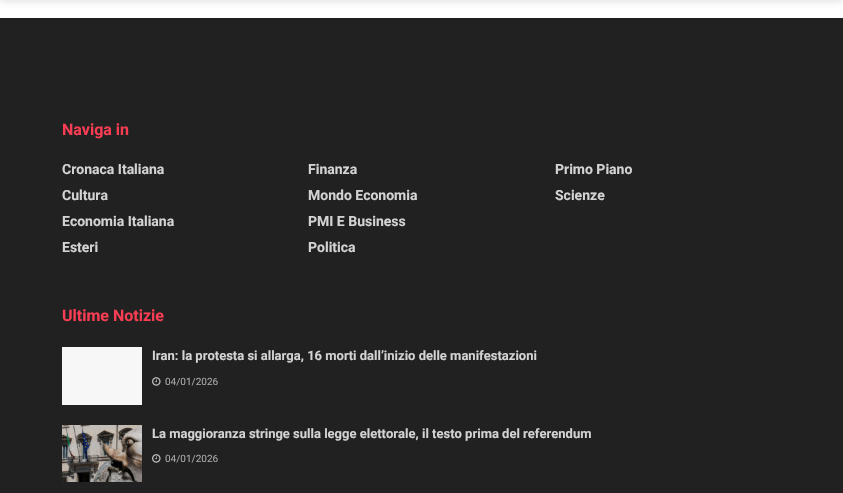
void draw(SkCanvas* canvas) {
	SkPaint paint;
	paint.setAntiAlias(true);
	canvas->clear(0xffffffff);
	paint.setColor(0x1a000000);
	paint.setMaskFilter(SkMaskFilter::MakeBlur(kNormal_SkBlurStyle, 3));
	canvas->drawRect(SkRect::MakeXYWH(0, -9, 843, 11), paint);
	paint.setMaskFilter(nullptr);
	paint.setColor(0xff212121);
	canvas->drawRect(SkRect::MakeXYWH(0, 18, 843, 475), paint);
	SkFont f1(fontMgr->matchFamilyStyle("Roboto", SkFontStyle::Bold()), 16);
	f1.setSubpixel(true);
	paint.setColor(0xfff93d53);
	canvas->drawString("Naviga in", 62, 135, f1, paint);
	SkFont f2(fontMgr->matchFamilyStyle("Roboto", SkFontStyle::Bold()), 14);
	f2.setSubpixel(true);
	paint.setColor(0xffd3d3d3);
	canvas->drawString("Cronaca Italiana", 62, 174, f2, paint);
	canvas->drawString("Finanza", 308, 174, f2, paint);
	canvas->drawString("Primo Piano", 555, 174, f2, paint);
	canvas->drawString("Cultura", 62, 200, f2, paint);
	canvas->drawString("Mondo Economia", 308, 200, f2, paint);
	canvas->drawString("Scienze", 555, 200, f2, paint);
	canvas->drawString("Economia Italiana", 62, 226, f2, paint);
	canvas->drawString("PMI E Business", 308, 226, f2, paint);
	canvas->drawString("Esteri", 62, 252, f2, paint);
	canvas->drawString("Politica", 308, 252, f2, paint);
	paint.setColor(0xfff93d53);
	canvas->drawString("Ultime Notizie", 62, 321, f1, paint);
	paint.setColor(0xfff7f7f7);
	canvas->drawRect(SkRect::MakeXYWH(62, 347, 80, 58), paint);
	SkFont f3(fontMgr->matchFamilyStyle("Roboto", SkFontStyle::Bold()), 13);
	f3.setSubpixel(true);
	paint.setColor(0xffd3d3d3);
	canvas->drawString("Iran: la protesta si allarga, 16 morti dall’inizio delle manifestazioni", 152, 360, f3, paint);
	canvas->drawImageRect(SkImages::DeferredFromEncodedData(SkData::MakeFromFileName("img1.png")), SkRect::MakeXYWH(152, 377, 9, 9), SkSamplingOptions());
	SkFont f4(fontMgr->matchFamilyStyle("Roboto", SkFontStyle::Normal()), 10);
	f4.setSubpixel(true);
	paint.setColor(0xffa8a8aa);
	canvas->drawString("04/01/2026", 165, 385, f4, paint);
	canvas->drawImageRect(SkImages::DeferredFromEncodedData(SkData::MakeFromFileName("img2.png")), SkRect::MakeXYWH(62, 425, 80, 57), SkSamplingOptions());
	paint.setColor(0xffd3d3d3);
	canvas->drawString("La maggioranza stringe sulla legge elettorale, il testo prima del referendum", 152, 438, f3, paint);
	canvas->drawImageRect(SkImages::DeferredFromEncodedData(SkData::MakeFromFileName("img1.png")), SkRect::MakeXYWH(152, 454, 9, 9), SkSamplingOptions());
	paint.setColor(0xffa8a8aa);
	canvas->drawString("04/01/2026", 165, 462, f4, paint);
}
